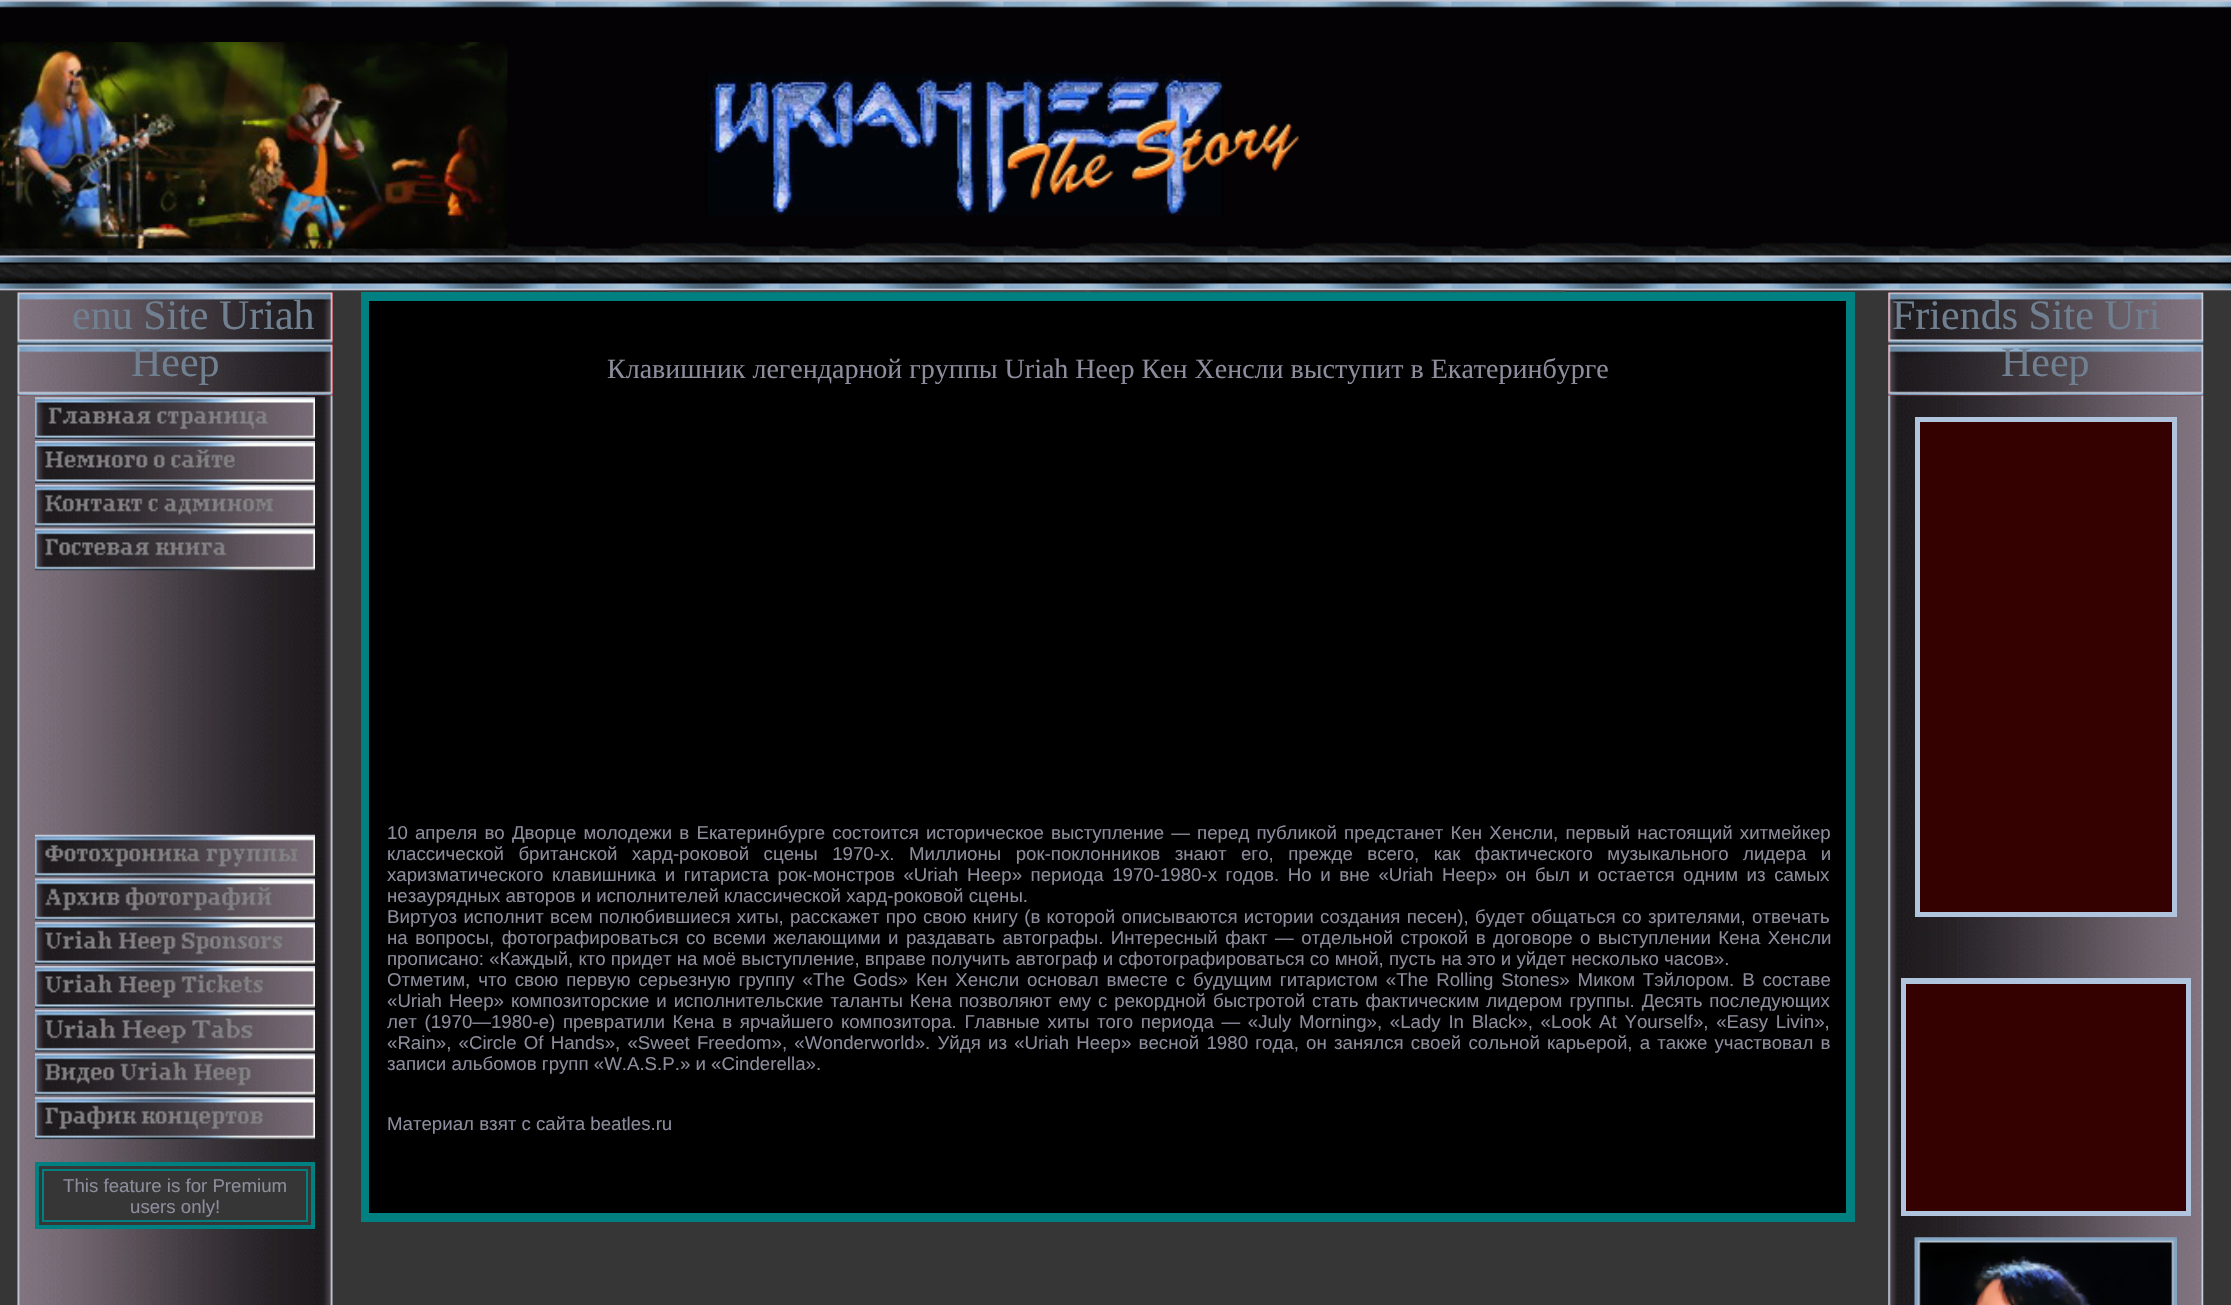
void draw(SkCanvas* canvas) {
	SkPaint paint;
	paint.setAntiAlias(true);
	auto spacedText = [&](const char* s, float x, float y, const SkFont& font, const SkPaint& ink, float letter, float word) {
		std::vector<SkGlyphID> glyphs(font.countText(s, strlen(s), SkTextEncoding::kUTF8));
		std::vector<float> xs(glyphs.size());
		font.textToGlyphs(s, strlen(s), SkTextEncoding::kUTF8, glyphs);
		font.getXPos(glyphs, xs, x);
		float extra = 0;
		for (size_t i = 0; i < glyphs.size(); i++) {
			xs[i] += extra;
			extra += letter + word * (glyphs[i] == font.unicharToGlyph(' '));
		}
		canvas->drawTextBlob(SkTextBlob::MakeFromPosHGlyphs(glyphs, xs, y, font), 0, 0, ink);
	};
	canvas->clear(0xff363636);
	paint.setColor(0xff000000);
	canvas->drawRect(SkRect::MakeXYWH(0, 290, 2231, 1), paint);
	canvas->drawImageRect(SkImages::DeferredFromEncodedData(SkData::MakeFromFileName("img1.png")), SkRect::MakeXYWH(0, 0, 2231, 291), SkSamplingOptions());
	canvas->drawImageRect(SkImages::DeferredFromEncodedData(SkData::MakeFromFileName("img2.png")), SkRect::MakeXYWH(0, 42, 508, 207), SkSamplingOptions());
	canvas->drawImageRect(SkImages::DeferredFromEncodedData(SkData::MakeFromFileName("img3.png")), SkRect::MakeXYWH(706, 73, 593, 143), SkSamplingOptions());
	paint.setStroke(true);
	paint.setStrokeWidth(9);
	paint.setColor(0xff008080);
	canvas->drawRect(SkRect::MakeXYWH(365.5, 296.5, 1485, 921), paint);
	canvas->drawImageRect(SkImages::DeferredFromEncodedData(SkData::MakeFromFileName("img4.png")), SkRect::MakeXYWH(668, 290, 897, 3), SkSamplingOptions());
	paint.setStroke(false);
	paint.setColor(0xffb60605);
	canvas->drawRect(SkRect::MakeXYWH(18, 292, 315, 104), paint);
	canvas->drawImageRect(SkImages::DeferredFromEncodedData(SkData::MakeFromFileName("img5.png")), SkRect::MakeXYWH(17, 292, 316, 104), SkSamplingOptions());
	SkFont f1(fontMgr->matchFamilyStyle("Liberation Serif", SkFontStyle::Normal()), 42);
	f1.setSubpixel(true);
	paint.setColor(0xff708090);
	canvas->drawString("enu Site Uriah", 72, 329, f1, paint);
	canvas->drawString("Heep", 131, 376, f1, paint);
	canvas->drawImageRect(SkImages::DeferredFromEncodedData(SkData::MakeFromFileName("img6.png")), SkRect::MakeXYWH(17, 395, 316, 910), SkSamplingOptions());
	canvas->drawImageRect(SkImages::DeferredFromEncodedData(SkData::MakeFromFileName("img7.png")), SkRect::MakeXYWH(26, 395, 281, 2), SkSamplingOptions());
	canvas->drawImageRect(SkImages::DeferredFromEncodedData(SkData::MakeFromFileName("img8.png")), SkRect::MakeXYWH(35, 397, 280, 43), SkSamplingOptions());
	canvas->drawImageRect(SkImages::DeferredFromEncodedData(SkData::MakeFromFileName("img9.png")), SkRect::MakeXYWH(35, 439, 280, 2), SkSamplingOptions());
	canvas->drawImageRect(SkImages::DeferredFromEncodedData(SkData::MakeFromFileName("img10.png")), SkRect::MakeXYWH(35, 441, 280, 42), SkSamplingOptions());
	canvas->drawImageRect(SkImages::DeferredFromEncodedData(SkData::MakeFromFileName("img11.png")), SkRect::MakeXYWH(42, 483, 268, 1), SkSamplingOptions());
	canvas->drawImageRect(SkImages::DeferredFromEncodedData(SkData::MakeFromFileName("img12.png")), SkRect::MakeXYWH(35, 484, 280, 43), SkSamplingOptions());
	canvas->drawImageRect(SkImages::DeferredFromEncodedData(SkData::MakeFromFileName("img13.png")), SkRect::MakeXYWH(35, 526, 280, 2), SkSamplingOptions());
	canvas->drawImageRect(SkImages::DeferredFromEncodedData(SkData::MakeFromFileName("img14.png")), SkRect::MakeXYWH(35, 528, 280, 43), SkSamplingOptions());
	canvas->drawImageRect(SkImages::DeferredFromEncodedData(SkData::MakeFromFileName("img15.png")), SkRect::MakeXYWH(35, 570, 280, 2), SkSamplingOptions());
	canvas->drawImageRect(SkImages::DeferredFromEncodedData(SkData::MakeFromFileName("img16.png")), SkRect::MakeXYWH(42, 614, 266, 2), SkSamplingOptions());
	canvas->drawImageRect(SkImages::DeferredFromEncodedData(SkData::MakeFromFileName("img11.png")), SkRect::MakeXYWH(42, 658, 268, 1), SkSamplingOptions());
	canvas->drawImageRect(SkImages::DeferredFromEncodedData(SkData::MakeFromFileName("img11.png")), SkRect::MakeXYWH(42, 702, 268, 1), SkSamplingOptions());
	canvas->drawImageRect(SkImages::DeferredFromEncodedData(SkData::MakeFromFileName("img17.png")), SkRect::MakeXYWH(42, 745, 268, 2), SkSamplingOptions());
	canvas->drawImageRect(SkImages::DeferredFromEncodedData(SkData::MakeFromFileName("img16.png")), SkRect::MakeXYWH(42, 789, 266, 2), SkSamplingOptions());
	canvas->drawImageRect(SkImages::DeferredFromEncodedData(SkData::MakeFromFileName("img11.png")), SkRect::MakeXYWH(42, 833, 268, 1), SkSamplingOptions());
	canvas->drawImageRect(SkImages::DeferredFromEncodedData(SkData::MakeFromFileName("img18.png")), SkRect::MakeXYWH(35, 834, 280, 43), SkSamplingOptions());
	canvas->drawImageRect(SkImages::DeferredFromEncodedData(SkData::MakeFromFileName("img13.png")), SkRect::MakeXYWH(35, 876, 280, 2), SkSamplingOptions());
	canvas->drawImageRect(SkImages::DeferredFromEncodedData(SkData::MakeFromFileName("img19.png")), SkRect::MakeXYWH(35, 878, 280, 43), SkSamplingOptions());
	canvas->drawImageRect(SkImages::DeferredFromEncodedData(SkData::MakeFromFileName("img15.png")), SkRect::MakeXYWH(35, 920, 280, 2), SkSamplingOptions());
	canvas->drawImageRect(SkImages::DeferredFromEncodedData(SkData::MakeFromFileName("img20.png")), SkRect::MakeXYWH(35, 922, 280, 43), SkSamplingOptions());
	canvas->drawImageRect(SkImages::DeferredFromEncodedData(SkData::MakeFromFileName("img9.png")), SkRect::MakeXYWH(35, 964, 280, 2), SkSamplingOptions());
	canvas->drawImageRect(SkImages::DeferredFromEncodedData(SkData::MakeFromFileName("img21.png")), SkRect::MakeXYWH(35, 966, 280, 42), SkSamplingOptions());
	canvas->drawImageRect(SkImages::DeferredFromEncodedData(SkData::MakeFromFileName("img11.png")), SkRect::MakeXYWH(42, 1008, 268, 1), SkSamplingOptions());
	canvas->drawImageRect(SkImages::DeferredFromEncodedData(SkData::MakeFromFileName("img22.png")), SkRect::MakeXYWH(35, 1009, 280, 43), SkSamplingOptions());
	canvas->drawImageRect(SkImages::DeferredFromEncodedData(SkData::MakeFromFileName("img13.png")), SkRect::MakeXYWH(35, 1051, 280, 2), SkSamplingOptions());
	canvas->drawImageRect(SkImages::DeferredFromEncodedData(SkData::MakeFromFileName("img23.png")), SkRect::MakeXYWH(35, 1053, 280, 43), SkSamplingOptions());
	canvas->drawImageRect(SkImages::DeferredFromEncodedData(SkData::MakeFromFileName("img15.png")), SkRect::MakeXYWH(35, 1095, 280, 2), SkSamplingOptions());
	canvas->drawImageRect(SkImages::DeferredFromEncodedData(SkData::MakeFromFileName("img24.png")), SkRect::MakeXYWH(35, 1097, 280, 43), SkSamplingOptions());
	canvas->drawImageRect(SkImages::DeferredFromEncodedData(SkData::MakeFromFileName("img9.png")), SkRect::MakeXYWH(35, 1139, 280, 2), SkSamplingOptions());
	paint.setColor(0xff363636);
	canvas->drawRect(SkRect::MakeXYWH(37, 1164, 276, 63), paint);
	paint.setStroke(true);
	paint.setStrokeWidth(4);
	paint.setColor(0xff008080);
	canvas->drawRect(SkRect::MakeXYWH(37, 1164, 276, 63), paint);
	paint.setStrokeWidth(2);
	canvas->drawRect(SkRect::MakeXYWH(43, 1170, 264, 51), paint);
	SkFont f2(fontMgr->matchFamilyStyle("Liberation Sans", SkFontStyle::Normal()), 18.67);
	f2.setSubpixel(true);
	paint.setStroke(false);
	paint.setColor(0xff8c8c9c);
	canvas->drawString("This feature is for Premium", 63, 1192, f2, paint);
	canvas->drawString("users only!", 130, 1213, f2, paint);
	paint.setColor(0xffb60605);
	canvas->drawRect(SkRect::MakeXYWH(1888, 292, 315, 104), paint);
	canvas->drawImageRect(SkImages::DeferredFromEncodedData(SkData::MakeFromFileName("img25.png")), SkRect::MakeXYWH(1888, 292, 316, 104), SkSamplingOptions());
	paint.setColor(0xff708090);
	canvas->drawString("Friends Site Uri", 1892, 329, f1, paint);
	canvas->drawString("Heep", 2001, 376, f1, paint);
	canvas->drawImageRect(SkImages::DeferredFromEncodedData(SkData::MakeFromFileName("img26.png")), SkRect::MakeXYWH(1888, 395, 316, 910), SkSamplingOptions());
	paint.setStroke(true);
	paint.setStrokeWidth(4);
	paint.setColor(0xffb0c4de);
	canvas->drawRect(SkRect::MakeXYWH(1917, 419, 258, 496), paint);
	paint.setStroke(false);
	paint.setColor(0xff350000);
	canvas->drawRect(SkRect::MakeXYWH(1919, 421, 254, 492), paint);
	paint.setStroke(true);
	paint.setStrokeWidth(2);
	paint.setColor(0xffb0c4de);
	canvas->drawRect(SkRect::MakeXYWH(1919, 421, 254, 492), paint);
	paint.setStrokeWidth(4);
	canvas->drawRect(SkRect::MakeXYWH(1903, 980, 286, 234), paint);
	paint.setStroke(false);
	paint.setColor(0xff350000);
	canvas->drawRect(SkRect::MakeXYWH(1905, 983, 282, 229), paint);
	paint.setStroke(true);
	paint.setStrokeWidth(2);
	paint.setColor(0xffb0c4de);
	canvas->drawRect(SkRect::MakeXYWH(1905, 983, 282, 229), paint);
	canvas->drawImageRect(SkImages::DeferredFromEncodedData(SkData::MakeFromFileName("img27.png")), SkRect::MakeXYWH(1914, 1237, 263, 68), SkSamplingOptions());
	paint.setStroke(false);
	paint.setColor(0xff000000);
	canvas->drawRect(SkRect::MakeXYWH(369, 301, 1477, 912), paint);
	SkFont f3(fontMgr->matchFamilyStyle("Liberation Serif", SkFontStyle::Normal()), 28);
	f3.setSubpixel(true);
	paint.setColor(0xff8c8c9c);
	canvas->drawString("Клавишник легендарной группы Uriah Heep Кен Хенсли выступит в Екатеринбурге", 607, 378, f3, paint);
	spacedText("10 апреля во Дворце молодежи в Екатеринбурге состоится историческое выступление — перед публикой предстанет Кен Хенсли, первый настоящий хитмейкер", 387, 839, f2, paint, 0, 2);
	spacedText("классической британской хард-роковой сцены 1970-х. Миллионы рок-поклонников знают его, прежде всего, как фактического музыкального лидера и", 387, 860, f2, paint, 0, 9.25);
	spacedText("харизматического клавишника и гитариста рок-монстров «Uriah Heep» периода 1970-1980-х годов. Но и вне «Uriah Heep» он был и остается одним из самых", 387, 881, f2, paint, 0, 3.4);
	canvas->drawString("незаурядных авторов и исполнителей классической хард-роковой сцены.", 387, 902, f2, paint);
	spacedText("Виртуоз исполнит всем полюбившиеся хиты, расскажет про свою книгу (в которой описываются истории создания песен), будет общаться со зрителями, отвечать", 387, 923, f2, paint, 0, 1.1);
	spacedText("на вопросы, фотографироваться со всеми желающими и раздавать автографы. Интересный факт — отдельной строкой в договоре о выступлении Кена Хенсли", 387, 944, f2, paint, 0, 2.25);
	canvas->drawString("прописано: «Каждый, кто придет на моё выступление, вправе получить автограф и сфотографироваться со мной, пусть на это и уйдет несколько часов».", 387, 965, f2, paint);
	spacedText("Отметим, что свою первую серьезную группу «The Gods» Кен Хенсли основал вместе с будущим гитаристом «The Rolling Stones» Миком Тэйлором. В составе", 387, 986, f2, paint, 0, 2.7);
	spacedText("«Uriah Heep» композиторские и исполнительские таланты Кена позволяют ему с рекордной быстротой стать фактическим лидером группы. Десять последующих", 387, 1007, f2, paint, 0, 1.75);
	spacedText("лет (1970—1980-е) превратили Кена в ярчайшего композитора. Главные хиты того периода — «July Morning», «Lady In Black», «Look At Yourself», «Easy Livin»,", 387, 1028, f2, paint, 0, 2.5);
	spacedText("«Rain», «Circle Of Hands», «Sweet Freedom», «Wonderworld». Уйдя из «Uriah Heep» весной 1980 года, он занялся своей сольной карьерой, а также участвовал в", 387, 1049, f2, paint, 0, 2);
	canvas->drawString("записи альбомов групп «W.A.S.P.» и «Cinderella».", 387, 1070, f2, paint);
	canvas->drawString("Материал взят с сайта beatles.ru", 387, 1130, f2, paint);
}
